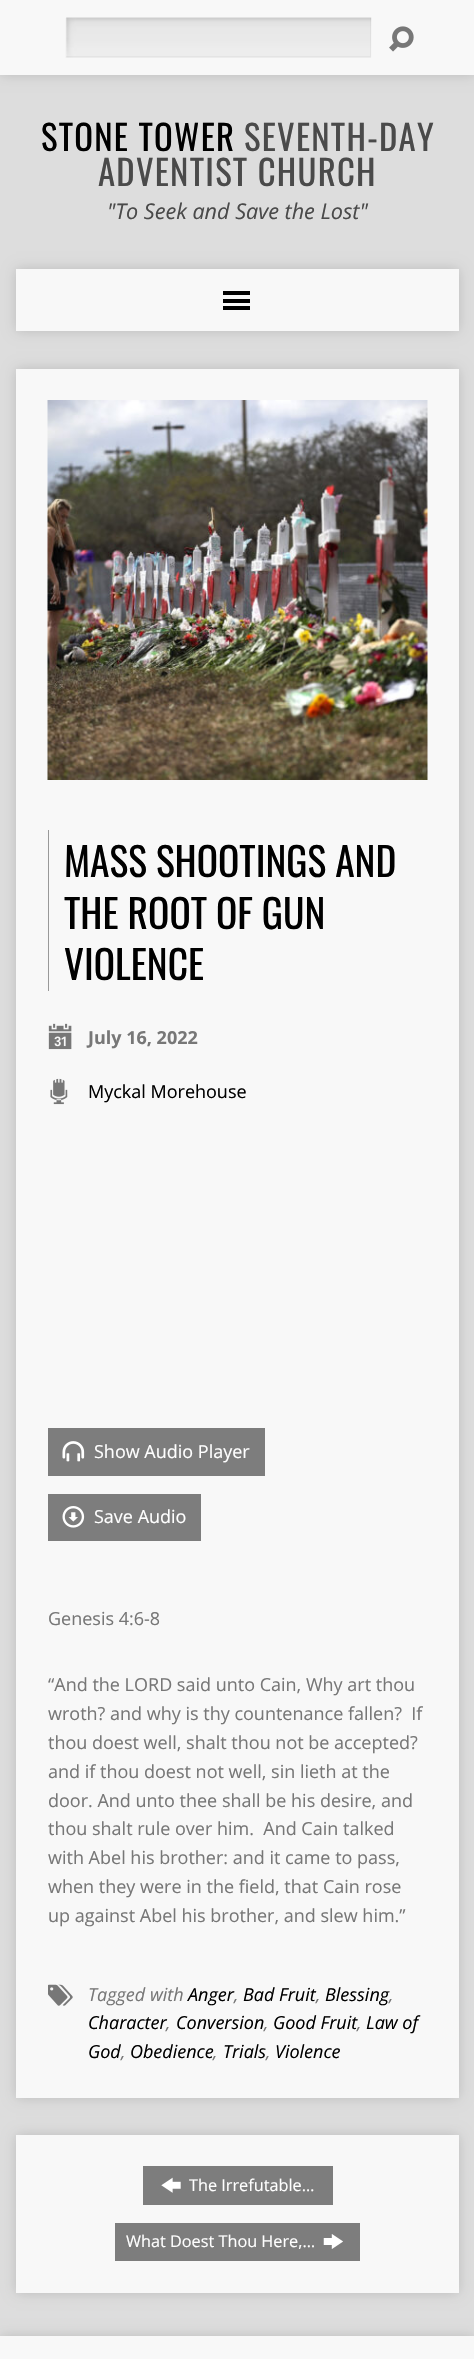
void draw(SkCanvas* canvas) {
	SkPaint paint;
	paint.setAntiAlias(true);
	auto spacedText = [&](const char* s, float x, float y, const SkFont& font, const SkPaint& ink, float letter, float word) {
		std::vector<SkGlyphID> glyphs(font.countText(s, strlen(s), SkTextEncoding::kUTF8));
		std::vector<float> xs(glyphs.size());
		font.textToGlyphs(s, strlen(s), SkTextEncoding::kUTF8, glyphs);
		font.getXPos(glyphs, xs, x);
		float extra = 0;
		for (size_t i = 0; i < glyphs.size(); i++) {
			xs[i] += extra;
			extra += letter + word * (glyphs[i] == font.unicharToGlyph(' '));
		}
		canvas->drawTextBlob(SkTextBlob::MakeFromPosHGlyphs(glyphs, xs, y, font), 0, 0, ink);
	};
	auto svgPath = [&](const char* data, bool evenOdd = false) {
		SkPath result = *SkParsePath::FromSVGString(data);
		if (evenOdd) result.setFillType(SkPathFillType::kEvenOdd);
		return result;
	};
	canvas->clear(0xffdddddd);
	paint.setColor(0x26000000);
	paint.setMaskFilter(SkMaskFilter::MakeBlur(kNormal_SkBlurStyle, 6));
	canvas->drawRect(SkRect::MakeXYWH(0, 0, 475, 75), paint);
	paint.setMaskFilter(nullptr);
	paint.setColor(0xfff8f8f8);
	canvas->drawRect(SkRect::MakeXYWH(0, 0, 474, 75), paint);
	paint.setColor(0xffffffff);
	canvas->drawRect(SkRect::MakeXYWH(65, 18, 306, 40), paint);
	canvas->drawImageRect(SkImages::DeferredFromEncodedData(SkData::MakeFromFileName("img1.png")), SkRect::MakeXYWH(66, 17, 306, 41), SkSamplingOptions());
	paint.setColor(0x1a969696);
	canvas->drawPath(svgPath("M371 18V58L370 56V18Z"), paint);
	canvas->drawPath(svgPath("M371 58H65L66 56H370Z"), paint);
	canvas->drawPath(svgPath("M65 58V18H66V56Z"), paint);
	canvas->drawImageRect(SkImages::DeferredFromEncodedData(SkData::MakeFromFileName("img2.png")), SkRect::MakeXYWH(389, 26, 25, 26), SkSamplingOptions());
	SkFont f1(fontMgr->matchFamilyStyle("Oswald", SkFontStyle::Normal()), 34.75);
	f1.setSubpixel(true);
	paint.setColor(0xff000000);
	spacedText("STONE TOWER", 41, 151, f1, paint, 1.25, 0);
	paint.setColor(0xff4a4a4a);
	spacedText("SEVENTH-DAY", 244, 151, f1, paint, 1.25, 0);
	spacedText("ADVENTIST CHURCH", 98, 186, f1, paint, 1.25, 0);
	SkFont f2(fontMgr->matchFamilyStyle("Open Sans", SkFontStyle::Italic()), 21.6);
	f2.setSubpixel(true);
	canvas->drawString("\"To Seek and Save the Lost\"", 107, 219, f2, paint);
	canvas->save();
	canvas->clipPath(svgPath("M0 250H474V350H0ZM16 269H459V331H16Z", true), true);
	paint.setColor(0x26000000);
	paint.setMaskFilter(SkMaskFilter::MakeBlur(kNormal_SkBlurStyle, 6));
	canvas->drawRect(SkRect::MakeXYWH(16, 269, 443, 62), paint);
	paint.setMaskFilter(nullptr);
	canvas->restore();
	paint.setColor(0xf0fafafa);
	canvas->drawRect(SkRect::MakeXYWH(16, 269, 443, 62), paint);
	paint.setColor(0xff000000);
	canvas->drawRect(SkRect::MakeXYWH(223, 291, 27, 4), paint);
	canvas->drawRect(SkRect::MakeXYWH(223, 299, 27, 4), paint);
	canvas->drawRect(SkRect::MakeXYWH(223, 306, 27, 4), paint);
	canvas->save();
	canvas->clipPath(svgPath("M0 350H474V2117H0ZM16 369H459V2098H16Z", true), true);
	paint.setColor(0x26000000);
	paint.setMaskFilter(SkMaskFilter::MakeBlur(kNormal_SkBlurStyle, 6));
	canvas->drawRect(SkRect::MakeXYWH(16, 369, 443, 1729), paint);
	paint.setMaskFilter(nullptr);
	canvas->restore();
	paint.setColor(0xf0fafafa);
	canvas->drawRect(SkRect::MakeXYWH(16, 369, 443, 1729), paint);
	canvas->drawImageRect(SkImages::DeferredFromEncodedData(SkData::MakeFromFileName("img3.png")), SkRect::MakeXYWH(47, 400, 381, 380), SkSamplingOptions());
	paint.setColor(0xff999999);
	canvas->drawRect(SkRect::MakeXYWH(48, 830, 1, 161), paint);
	SkFont f3(fontMgr->matchFamilyStyle("Oswald", SkFontStyle::Normal()), 39.5);
	f3.setSubpixel(true);
	paint.setColor(0xff000000);
	canvas->drawString("MASS SHOOTINGS AND", 64, 877, f3, paint);
	canvas->drawString("THE ROOT OF GUN", 64, 929, f3, paint);
	canvas->drawString("VIOLENCE", 64, 980, f3, paint);
	canvas->drawImageRect(SkImages::DeferredFromEncodedData(SkData::MakeFromFileName("img4.png")), SkRect::MakeXYWH(48, 1023, 24, 27), SkSamplingOptions());
	SkFont f4(fontMgr->matchFamilyStyle("Open Sans", SkFontStyle::Bold()), 18);
	f4.setSubpixel(true);
	paint.setColor(0xff777777);
	canvas->drawString("July 16, 2022", 88, 1044, f4, paint);
	canvas->drawImageRect(SkImages::DeferredFromEncodedData(SkData::MakeFromFileName("img5.png")), SkRect::MakeXYWH(50, 1078, 18, 27), SkSamplingOptions());
	SkFont f5(fontMgr->matchFamilyStyle("Open Sans", SkFontStyle::Normal()), 18);
	f5.setSubpixel(true);
	paint.setColor(0xff000000);
	canvas->drawString("Myckal Morehouse", 88, 1098, f5, paint);
	paint.setColor(0xff7d7d7d);
	canvas->drawRect(SkRect::MakeXYWH(48, 1428, 217, 48), paint);
	canvas->drawImageRect(SkImages::DeferredFromEncodedData(SkData::MakeFromFileName("img6.png")), SkRect::MakeXYWH(62, 1441, 23, 21), SkSamplingOptions());
	paint.setColor(0xffffffff);
	canvas->drawString("Show Audio Player", 94, 1458, f5, paint);
	paint.setColor(0xff7d7d7d);
	canvas->drawRect(SkRect::MakeXYWH(48, 1494, 153, 47), paint);
	canvas->drawImageRect(SkImages::DeferredFromEncodedData(SkData::MakeFromFileName("img7.png")), SkRect::MakeXYWH(62, 1506, 23, 22), SkSamplingOptions());
	paint.setColor(0xffffffff);
	canvas->drawString("Save Audio", 94, 1523, f5, paint);
	paint.setColor(0xff777777);
	canvas->drawString("Genesis 4:6-8", 48, 1625, f5, paint);
	canvas->drawString("“And the LORD said unto Cain, Why art thou", 48, 1691, f5, paint);
	canvas->drawString("wroth? and why is thy countenance fallen?  If", 48, 1720, f5, paint);
	canvas->drawString("thou doest well, shalt thou not be accepted?", 48, 1749, f5, paint);
	canvas->drawString("and if thou doest not well, sin lieth at the", 48, 1778, f5, paint);
	canvas->drawString("door. And unto thee shall be his desire, and", 48, 1807, f5, paint);
	canvas->drawString("thou shalt rule over him.  And Cain talked", 48, 1835, f5, paint);
	canvas->drawString("with Abel his brother: and it came to pass,", 48, 1864, f5, paint);
	canvas->drawString("when they were in the field, that Cain rose", 48, 1893, f5, paint);
	canvas->drawString("up against Abel his brother, and slew him.”", 48, 1922, f5, paint);
	canvas->drawImageRect(SkImages::DeferredFromEncodedData(SkData::MakeFromFileName("img8.png")), SkRect::MakeXYWH(48, 1984, 25, 22), SkSamplingOptions());
	SkFont f6(fontMgr->matchFamilyStyle("Open Sans", SkFontStyle::Italic()), 18);
	f6.setSubpixel(true);
	canvas->drawString("Tagged with", 88, 2001, f6, paint);
	paint.setColor(0xff000000);
	canvas->drawString("Anger", 188, 2001, f6, paint);
	canvas->drawString("Bad Fruit", 243, 2001, f6, paint);
	canvas->drawString("Blessing", 325, 2001, f6, paint);
	paint.setColor(0xff777777);
	canvas->drawString(",", 234, 2001, f6, paint);
	canvas->drawString(",", 316, 2001, f6, paint);
	canvas->drawString(",", 389, 2001, f6, paint);
	paint.setColor(0xff000000);
	canvas->drawString("Character", 88, 2029, f6, paint);
	paint.setColor(0xff777777);
	canvas->drawString(",", 166, 2029, f6, paint);
	paint.setColor(0xff000000);
	canvas->drawString("Conversion", 176, 2029, f6, paint);
	paint.setColor(0xff777777);
	canvas->drawString(",", 264, 2029, f6, paint);
	paint.setColor(0xff000000);
	canvas->drawString("Good Fruit", 273, 2029, f6, paint);
	canvas->drawString("Law of", 366, 2029, f6, paint);
	paint.setColor(0xff777777);
	canvas->drawString(",", 357, 2029, f6, paint);
	paint.setColor(0xff000000);
	canvas->drawString("God", 88, 2058, f6, paint);
	paint.setColor(0xff777777);
	canvas->drawString(",", 121, 2058, f6, paint);
	paint.setColor(0xff000000);
	canvas->drawString("Obedience", 130, 2058, f6, paint);
	paint.setColor(0xff777777);
	canvas->drawString(",", 213, 2058, f6, paint);
	paint.setColor(0xff000000);
	canvas->drawString("Trials", 223, 2058, f6, paint);
	paint.setColor(0xff777777);
	canvas->drawString(",", 266, 2058, f6, paint);
	paint.setColor(0xff000000);
	canvas->drawString("Violence", 275, 2058, f6, paint);
	canvas->save();
	canvas->clipPath(svgPath("M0 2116H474V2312H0ZM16 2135H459V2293H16Z", true), true);
	paint.setColor(0x26000000);
	paint.setMaskFilter(SkMaskFilter::MakeBlur(kNormal_SkBlurStyle, 6));
	canvas->drawRect(SkRect::MakeXYWH(16, 2135, 443, 158), paint);
	paint.setMaskFilter(nullptr);
	canvas->restore();
	paint.setColor(0xf0fafafa);
	canvas->drawRect(SkRect::MakeXYWH(16, 2135, 443, 158), paint);
	paint.setColor(0xff7d7d7d);
	canvas->drawRect(SkRect::MakeXYWH(143, 2166, 190, 39), paint);
	canvas->drawImageRect(SkImages::DeferredFromEncodedData(SkData::MakeFromFileName("img9.png")), SkRect::MakeXYWH(161, 2177, 20, 16), SkSamplingOptions());
	SkFont f7(fontMgr->matchFamilyStyle("Open Sans", SkFontStyle::Normal()), 16.25);
	f7.setSubpixel(true);
	paint.setColor(0xffffffff);
	canvas->drawString("The Irrefutable…", 189, 2191, f7, paint);
	paint.setColor(0xff7d7d7d);
	canvas->drawRect(SkRect::MakeXYWH(115, 2223, 245, 38), paint);
	paint.setColor(0xffffffff);
	canvas->drawString("What Doest Thou Here,…", 126, 2247, f7, paint);
	canvas->drawImageRect(SkImages::DeferredFromEncodedData(SkData::MakeFromFileName("img10.png")), SkRect::MakeXYWH(323, 2234, 20, 15), SkSamplingOptions());
	canvas->save();
	canvas->clipPath(svgPath("M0 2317H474V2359H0ZM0 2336H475V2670H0Z", true), true);
	paint.setColor(0x26000000);
	paint.setMaskFilter(SkMaskFilter::MakeBlur(kNormal_SkBlurStyle, 6));
	canvas->drawRect(SkRect::MakeXYWH(0, 2336, 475, 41), paint);
	paint.setMaskFilter(nullptr);
	canvas->restore();
	paint.setColor(0xf0fafafa);
	canvas->drawRect(SkRect::MakeXYWH(0, 2336, 474, 23), paint);
}
